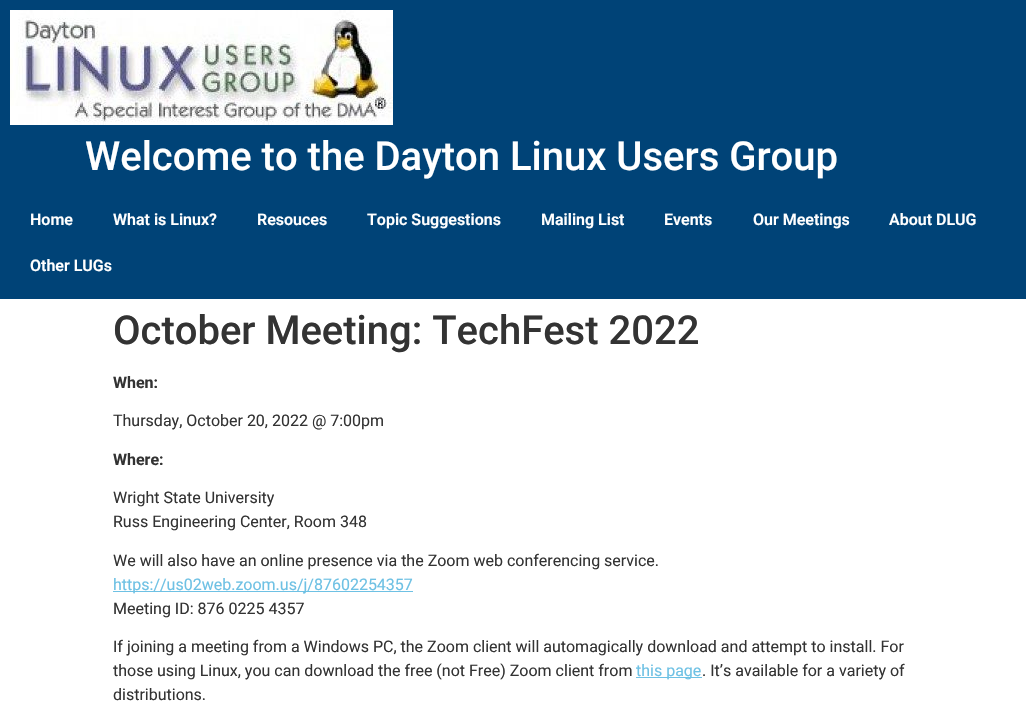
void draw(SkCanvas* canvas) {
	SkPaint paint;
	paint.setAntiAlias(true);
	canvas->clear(0xffffffff);
	paint.setColor(0xff004377);
	canvas->drawRect(SkRect::MakeXYWH(0, 0, 1026, 299), paint);
	canvas->drawImageRect(SkImages::DeferredFromEncodedData(SkData::MakeFromFileName("img1.png")), SkRect::MakeXYWH(10, 10, 383, 115), SkSamplingOptions());
	SkFont f1(fontMgr->matchFamilyStyle("Roboto", SkFontStyle(500, SkFontStyle::kNormal_Width, SkFontStyle::kUpright_Slant)), 40);
	f1.setSubpixel(true);
	paint.setColor(0xffffffff);
	canvas->drawString("Welcome to the Dayton Linux Users Group", 85, 170, f1, paint);
	SkFont f2(fontMgr->matchFamilyStyle("Roboto", SkFontStyle(600, SkFontStyle::kNormal_Width, SkFontStyle::kUpright_Slant)), 16);
	f2.setSubpixel(true);
	canvas->drawString("Home", 30, 225, f2, paint);
	canvas->drawString("What is Linux?", 113, 225, f2, paint);
	canvas->drawString("Resouces", 257, 225, f2, paint);
	canvas->drawString("Topic Suggestions", 367, 225, f2, paint);
	canvas->drawString("Mailing List", 541, 225, f2, paint);
	canvas->drawString("Events", 664, 225, f2, paint);
	canvas->drawString("Our Meetings", 753, 225, f2, paint);
	canvas->drawString("About DLUG", 889, 225, f2, paint);
	canvas->drawString("Other LUGs", 30, 271, f2, paint);
	paint.setColor(0xff333333);
	canvas->drawString("October Meeting: TechFest 2022", 113, 344, f1, paint);
	SkFont f3(fontMgr->matchFamilyStyle("Roboto", SkFontStyle::Bold()), 16);
	f3.setSubpixel(true);
	canvas->drawString("When:", 113, 388, f3, paint);
	SkFont f4(fontMgr->matchFamilyStyle("Roboto", SkFontStyle::Normal()), 16);
	f4.setSubpixel(true);
	canvas->drawString("Thursday, October 20, 2022 @ 7:00pm", 113, 426, f4, paint);
	canvas->drawString("Where:", 113, 465, f3, paint);
	canvas->drawString("Wright State University", 113, 503, f4, paint);
	canvas->drawString("Russ Engineering Center, Room 348", 113, 527, f4, paint);
	canvas->drawString("We will also have an online presence via the Zoom web conferencing service.", 113, 566, f4, paint);
	paint.setColor(0xff6ec1e4);
	canvas->drawRect(SkRect::MakeXYWH(113, 591, 300, 1), paint);
	canvas->drawString("https://us02web.zoom.us/j/87602254357", 113, 590, f4, paint);
	paint.setColor(0xff333333);
	canvas->drawString("Meeting ID: 876 0225 4357", 113, 614, f4, paint);
	canvas->drawString("If joining a meeting from a Windows PC, the Zoom client will automagically download and attempt to install. For", 113, 652, f4, paint);
	canvas->drawString("those using Linux, you can download the free (not Free) Zoom client from", 113, 676, f4, paint);
	paint.setColor(0xff6ec1e4);
	canvas->drawRect(SkRect::MakeXYWH(636, 677, 66, 1), paint);
	canvas->drawString("this page", 636, 676, f4, paint);
	paint.setColor(0xff333333);
	canvas->drawString(". It’s available for a variety of", 702, 676, f4, paint);
	canvas->drawString("distributions.", 113, 700, f4, paint);
}
